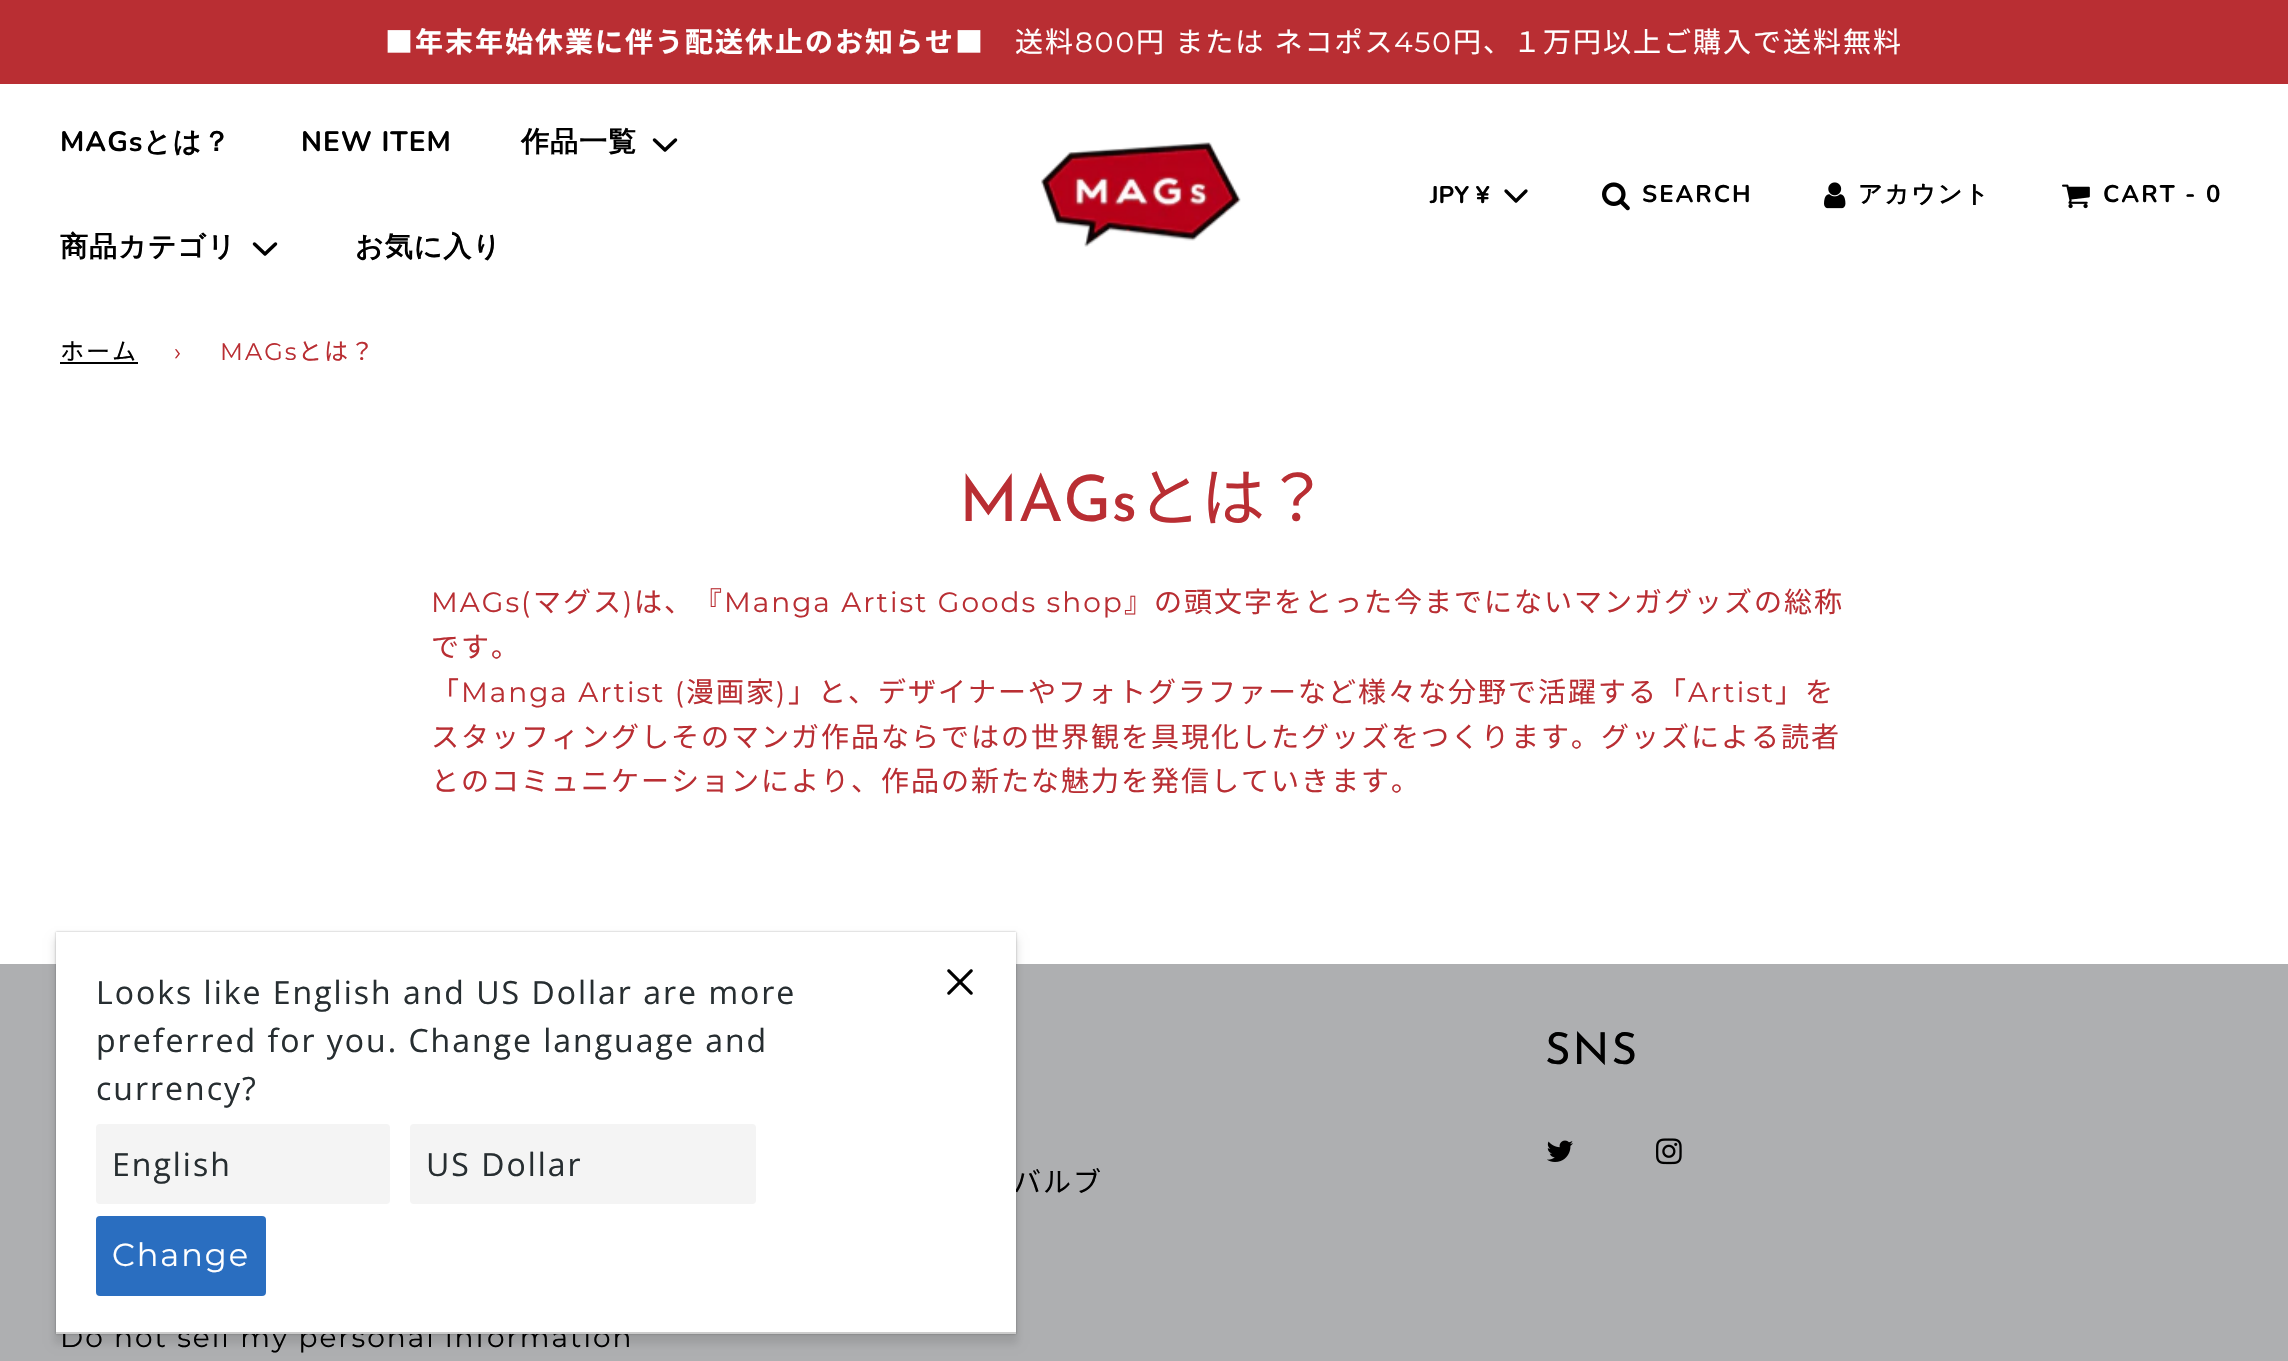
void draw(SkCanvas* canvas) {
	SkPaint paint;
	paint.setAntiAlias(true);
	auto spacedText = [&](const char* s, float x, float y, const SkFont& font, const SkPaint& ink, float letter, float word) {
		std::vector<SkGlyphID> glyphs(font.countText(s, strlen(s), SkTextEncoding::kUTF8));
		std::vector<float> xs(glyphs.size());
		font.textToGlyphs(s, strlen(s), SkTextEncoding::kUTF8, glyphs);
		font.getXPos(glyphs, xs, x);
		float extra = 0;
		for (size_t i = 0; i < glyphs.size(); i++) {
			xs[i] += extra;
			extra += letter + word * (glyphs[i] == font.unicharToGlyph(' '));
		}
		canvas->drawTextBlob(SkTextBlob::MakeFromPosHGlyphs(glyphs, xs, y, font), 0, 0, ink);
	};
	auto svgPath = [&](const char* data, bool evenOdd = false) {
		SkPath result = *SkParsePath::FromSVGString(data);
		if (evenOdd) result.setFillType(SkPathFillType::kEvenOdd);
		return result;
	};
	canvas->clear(0xffffffff);
	paint.setColor(0xffb92e33);
	canvas->drawRect(SkRect::MakeXYWH(0, 0, 2288, 84), paint);
	SkFont f1(fontMgr->matchFamilyStyle("Noto Sans JP", SkFontStyle::Bold()), 28);
	f1.setSubpixel(true);
	paint.setColor(0xffffffff);
	spacedText("■年末年始休業に伴う配送休止のお知らせ■", 385, 52, f1, paint, 2, 0);
	SkFont f2(fontMgr->matchFamilyStyle("Noto Sans JP", SkFontStyle::Normal()), 28);
	f2.setSubpixel(true);
	spacedText("送料", 1015, 52, f2, paint, 2, 0);
	SkFont f3(fontMgr->matchFamilyStyle("Montserrat", SkFontStyle::Normal()), 28);
	f3.setSubpixel(true);
	spacedText("800", 1075, 52, f3, paint, 2, 0);
	spacedText("円 または ネコポス", 1136, 52, f2, paint, 2, 1);
	spacedText("450", 1394, 52, f3, paint, 2, 0);
	spacedText("円、１万円以上ご購入で送料無料", 1453, 52, f2, paint, 2, 0);
	SkFont f4(fontMgr->matchFamilyStyle("Nunito", SkFontStyle::Bold()), 28);
	f4.setSubpixel(true);
	paint.setColor(0xff000000);
	spacedText("MAGs", 60, 151, f4, paint, 1, 0);
	SkFont f5(fontMgr->matchFamilyStyle("WenQuanYi Zen Hei", SkFontStyle::Bold()), 28);
	f5.setSubpixel(true);
	spacedText("とは？", 143, 151, f5, paint, 1, 0);
	spacedText("NEW ITEM", 301, 151, f4, paint, 1, 0);
	spacedText("作品一覧", 521, 151, f5, paint, 1, 0);
	paint.setStroke(true);
	paint.setStrokeWidth(3.5);
	paint.setStrokeCap(SkPaint::kRound_Cap);
	paint.setStrokeJoin(SkPaint::kRound_Join);
	canvas->drawPath(svgPath("M654.5 140L665 150L675.5 140"), paint);
	paint.setStroke(false);
	spacedText("商品カテゴリ", 60, 256, f5, paint, 1, 0);
	paint.setStroke(true);
	canvas->drawPath(svgPath("M254.5 244L265 254L275.5 244"), paint);
	paint.setStroke(false);
	spacedText("お気に入り", 355, 256, f5, paint, 1, 0);
	canvas->drawImageRect(SkImages::DeferredFromEncodedData(SkData::MakeFromFileName("img1.png")), SkRect::MakeXYWH(1041, 142, 200, 105), SkSamplingOptions());
	SkFont f6(fontMgr->matchFamilyStyle("Nunito", SkFontStyle::Bold()), 24);
	f6.setSubpixel(true);
	canvas->drawString("JPY ¥", 1430, 203, f6, paint);
	paint.setStroke(true);
	paint.setStrokeWidth(3.3);
	canvas->drawPath(svgPath("M1506 191L1516 201L1526 191"), paint);
	canvas->drawImageRect(SkImages::DeferredFromEncodedData(SkData::MakeFromFileName("img2.png")), SkRect::MakeXYWH(1602, 182, 28, 29), SkSamplingOptions());
	paint.setStroke(false);
	spacedText("SEARCH", 1642, 202, f6, paint, 2, 0);
	canvas->drawImageRect(SkImages::DeferredFromEncodedData(SkData::MakeFromFileName("img3.png")), SkRect::MakeXYWH(1824, 182, 22, 27), SkSamplingOptions());
	SkFont f7(fontMgr->matchFamilyStyle("WenQuanYi Zen Hei", SkFontStyle::Bold()), 24);
	f7.setSubpixel(true);
	spacedText("アカウント", 1858, 202, f7, paint, 2, 0);
	canvas->drawImageRect(SkImages::DeferredFromEncodedData(SkData::MakeFromFileName("img4.png")), SkRect::MakeXYWH(2062, 184, 28, 25), SkSamplingOptions());
	spacedText("CART - 0", 2103, 202, f6, paint, 2, 0);
	SkFont f8(fontMgr->matchFamilyStyle("Noto Sans JP", SkFontStyle::Normal()), 24);
	f8.setSubpixel(true);
	spacedText("ホーム", 60, 360, f8, paint, 2, 0);
	canvas->drawRect(SkRect::MakeXYWH(60, 362, 78, 2), paint);
	SkFont f9(fontMgr->matchFamilyStyle("Montserrat", SkFontStyle::Normal()), 24);
	f9.setSubpixel(true);
	paint.setColor(0xffb92e33);
	spacedText("›", 174, 360, f9, paint, 2, 0);
	spacedText("MAGs", 220, 360, f9, paint, 2, 0);
	spacedText("とは？", 298, 360, f8, paint, 2, 0);
	SkFont f10(fontMgr->matchFamilyStyle("Josefin Sans", SkFontStyle::Normal()), 64);
	f10.setSubpixel(true);
	canvas->drawString("MAGs", 959, 521, f10, paint);
	SkFont f11(fontMgr->matchFamilyStyle("Noto Sans JP", SkFontStyle::Normal()), 64);
	f11.setSubpixel(true);
	canvas->drawString("とは？", 1137, 521, f11, paint);
	spacedText("MAGs(", 431, 612, f3, paint, 2, 0);
	spacedText("マグス", 533, 612, f2, paint, 2, 0);
	spacedText(")", 623, 612, f3, paint, 2, 0);
	spacedText("は、『", 634, 612, f2, paint, 2, 0);
	spacedText("Manga Artist Goods shop", 724, 612, f3, paint, 2, 0);
	spacedText("』の頭文字をとった今までにないマンガグッズの総称", 1124, 612, f2, paint, 2, 0);
	spacedText("です。", 431, 657, f2, paint, 2, 0);
	spacedText("「", 431, 702, f2, paint, 2, 0);
	spacedText("Manga Artist (", 461, 702, f3, paint, 2, 0);
	spacedText("漫画家", 686, 702, f2, paint, 2, 0);
	spacedText(")", 776, 702, f3, paint, 2, 0);
	spacedText("」と、デザイナーやフォトグラファーなど様々な分野で活躍する「", 788, 702, f2, paint, 2, 0);
	spacedText("Artist", 1688, 702, f3, paint, 2, 0);
	spacedText("」を", 1775, 702, f2, paint, 2, 0);
	spacedText("スタッフィングしそのマンガ作品ならではの世界観を具現化したグッズをつくります。グッズによる読者", 431, 747, f2, paint, 2, 0);
	spacedText("とのコミュニケーションにより、作品の新たな魅力を発信していきます。", 431, 791, f2, paint, 2, 0);
	paint.setColor(0xffaeafb1);
	canvas->drawRect(SkRect::MakeXYWH(0, 964, 2288, 397), paint);
	SkFont f12(fontMgr->matchFamilyStyle("Josefin Sans", SkFontStyle::Normal()), 44);
	f12.setSubpixel(true);
	paint.setColor(0xff000000);
	spacedText("SNS", 1545, 1064, f12, paint, 2, 0);
	canvas->drawImageRect(SkImages::DeferredFromEncodedData(SkData::MakeFromFileName("img5.png")), SkRect::MakeXYWH(1547, 1140, 26, 22), SkSamplingOptions());
	canvas->drawImageRect(SkImages::DeferredFromEncodedData(SkData::MakeFromFileName("img6.png")), SkRect::MakeXYWH(1656, 1138, 26, 27), SkSamplingOptions());
	spacedText("バルブ", 1013, 1192, f2, paint, 2, 0);
	spacedText("Do not sell my personal information", 60, 1347, f3, paint, 2, 0);
	paint.setColor(0x1a000000);
	paint.setMaskFilter(SkMaskFilter::MakeBlur(kNormal_SkBlurStyle, 4));
	canvas->drawRect(SkRect::MakeXYWH(54, 938, 964, 406), paint);
	paint.setMaskFilter(nullptr);
	paint.setColor(0x4d000000);
	paint.setMaskFilter(SkMaskFilter::MakeBlur(kNormal_SkBlurStyle, 1));
	canvas->drawRect(SkRect::MakeXYWH(56, 932, 960, 402), paint);
	paint.setMaskFilter(nullptr);
	paint.setColor(0xffffffff);
	canvas->drawRect(SkRect::MakeXYWH(56, 932, 960, 400), paint);
	paint.setColor(0xffcccccc);
	canvas->drawRect(SkRect::MakeXYWH(56, 1332, 960, 2), paint);
	SkFont f13(fontMgr->matchFamilyStyle("Open Sans", SkFontStyle::Normal()), 32);
	f13.setSubpixel(true);
	paint.setColor(0xff272e31);
	spacedText("Looks like English and US Dollar are more", 96, 1004, f13, paint, 2, 0);
	spacedText("preferred for you. Change language and", 96, 1052, f13, paint, 2, 0);
	spacedText("currency?", 96, 1100, f13, paint, 2, 0);
	paint.setColor(0xfff4f4f4);
	canvas->drawRoundRect(SkRect::MakeXYWH(96, 1124, 294, 80), 4, 4, paint);
	paint.setColor(0xff272e31);
	spacedText("English", 112, 1176, f13, paint, 2, 0);
	paint.setColor(0xfff4f4f4);
	canvas->drawRoundRect(SkRect::MakeXYWH(410, 1124, 346, 80), 4, 4, paint);
	paint.setColor(0xff272e31);
	spacedText("US Dollar", 426, 1176, f13, paint, 2, 0);
	paint.setColor(0xff2a6ec0);
	canvas->drawRoundRect(SkRect::MakeXYWH(96, 1216, 170, 80), 4, 4, paint);
	SkFont f14(fontMgr->matchFamilyStyle("Montserrat", SkFontStyle::Normal()), 32);
	f14.setSubpixel(true);
	paint.setColor(0xffffffff);
	spacedText("Change", 112, 1266, f14, paint, 2, 0);
	canvas->drawImageRect(SkImages::DeferredFromEncodedData(SkData::MakeFromFileName("img7.png")), SkRect::MakeXYWH(947, 969, 26, 26), SkSamplingOptions());
}
